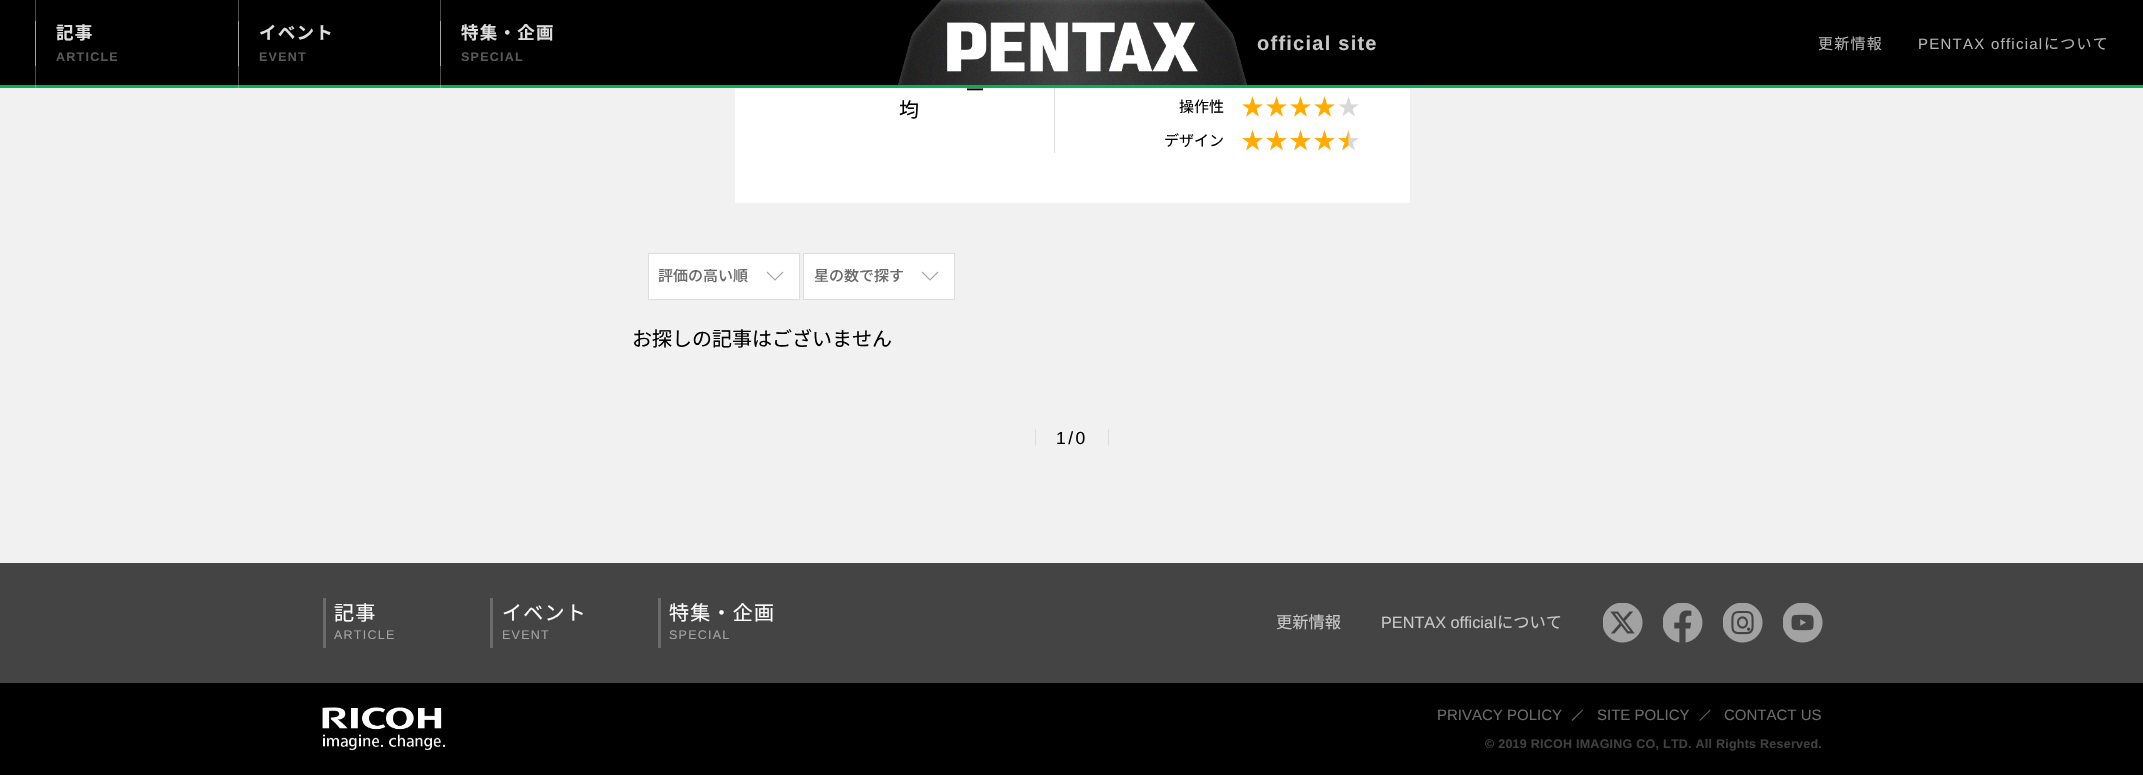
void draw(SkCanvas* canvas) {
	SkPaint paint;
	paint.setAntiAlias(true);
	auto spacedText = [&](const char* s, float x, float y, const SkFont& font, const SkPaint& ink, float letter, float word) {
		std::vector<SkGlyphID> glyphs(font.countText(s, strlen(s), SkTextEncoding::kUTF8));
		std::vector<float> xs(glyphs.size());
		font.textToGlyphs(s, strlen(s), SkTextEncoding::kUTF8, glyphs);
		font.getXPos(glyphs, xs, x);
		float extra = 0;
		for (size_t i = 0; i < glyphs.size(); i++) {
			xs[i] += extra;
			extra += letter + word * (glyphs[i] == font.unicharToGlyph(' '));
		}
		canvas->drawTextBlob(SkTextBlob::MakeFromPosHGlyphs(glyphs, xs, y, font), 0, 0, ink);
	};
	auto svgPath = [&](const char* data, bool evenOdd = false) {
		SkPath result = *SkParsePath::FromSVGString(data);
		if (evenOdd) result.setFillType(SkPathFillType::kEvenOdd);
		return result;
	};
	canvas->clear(0xfff1f1f1);
	paint.setColor(0xff000000);
	canvas->drawRect(SkRect::MakeXYWH(0, 0, 2143, 85), paint);
	paint.setColor(0xff4d4d4d);
	canvas->drawRect(SkRect::MakeXYWH(440, 0, 1, 88), paint);
	canvas->drawRect(SkRect::MakeXYWH(238, 0, 1, 88), paint);
	canvas->drawRect(SkRect::MakeXYWH(35, 0, 1, 88), paint);
	paint.setColor(0xffa6a6a6);
	canvas->drawRect(SkRect::MakeXYWH(35, 21, 1, 45), paint);
	SkFont f1(fontMgr->matchFamilyStyle("Noto Sans JP", SkFontStyle::Bold()), 17.5);
	f1.setSubpixel(true);
	paint.setColor(0xffdddddd);
	spacedText("記事", 56, 39, f1, paint, 1.25, 0);
	SkFont f2(fontMgr->matchFamilyStyle("Liberation Sans", SkFontStyle::Bold()), 12.5);
	f2.setSubpixel(true);
	paint.setColor(0xff585858);
	spacedText("ARTICLE", 56, 61, f2, paint, 1.25, 0);
	paint.setColor(0xffa6a6a6);
	canvas->drawRect(SkRect::MakeXYWH(238, 21, 1, 45), paint);
	paint.setColor(0xffdddddd);
	spacedText("イベント", 259, 39, f1, paint, 1.25, 0);
	paint.setColor(0xff585858);
	spacedText("EVENT", 259, 61, f2, paint, 1.25, 0);
	paint.setColor(0xffa6a6a6);
	canvas->drawRect(SkRect::MakeXYWH(440, 21, 1, 45), paint);
	paint.setColor(0xffdddddd);
	spacedText("特集・企画", 461, 39, f1, paint, 1.25, 0);
	paint.setColor(0xff585858);
	spacedText("SPECIAL", 461, 61, f2, paint, 1.25, 0);
	canvas->drawImageRect(SkImages::DeferredFromEncodedData(SkData::MakeFromFileName("img1.png")), SkRect::MakeXYWH(898, 0, 349, 85), SkSamplingOptions());
	SkFont f3(fontMgr->matchFamilyStyle("Liberation Sans", SkFontStyle::Bold()), 20);
	f3.setSubpixel(true);
	paint.setColor(0xffc7c7c7);
	spacedText("official site", 1257, 50, f3, paint, 1.25, 0);
	SkFont f4(fontMgr->matchFamilyStyle("Noto Sans JP", SkFontStyle::Normal()), 15);
	f4.setSubpixel(true);
	paint.setColor(0xffb3b3b3);
	spacedText("更新情報", 1818, 49, f4, paint, 1.25, 0);
	SkFont f5(fontMgr->matchFamilyStyle("Liberation Sans", SkFontStyle::Normal()), 15);
	f5.setSubpixel(true);
	spacedText("PENTAX official", 1918, 49, f5, paint, 1.25, 0);
	spacedText("について", 2044, 49, f4, paint, 1.25, 0);
	paint.setColor(0xff00b551);
	canvas->drawRect(SkRect::MakeXYWH(0, 85, 2143, 3), paint);
	paint.setColor(0xff4dcb85);
	canvas->drawRect(SkRect::MakeXYWH(440, 85, 1, 3), paint);
	canvas->drawRect(SkRect::MakeXYWH(238, 85, 1, 3), paint);
	canvas->drawRect(SkRect::MakeXYWH(35, 85, 1, 3), paint);
	paint.setColor(0xffffffff);
	canvas->drawRect(SkRect::MakeXYWH(735, 88, 675, 115), paint);
	SkFont f6(fontMgr->matchFamilyStyle("Noto Sans JP", SkFontStyle::Normal()), 20);
	f6.setSubpixel(true);
	paint.setColor(0xff000000);
	canvas->drawString("ー", 965, 97, f6, paint);
	canvas->drawString("均", 899, 117, f6, paint);
	paint.setColor(0xffdddddd);
	canvas->drawRect(SkRect::MakeXYWH(1054, 88, 1, 65), paint);
	paint.setColor(0xff000000);
	canvas->drawString("操作性", 1179, 112, f4, paint);
	canvas->drawImageRect(SkImages::DeferredFromEncodedData(SkData::MakeFromFileName("img2.png")), SkRect::MakeXYWH(1242, 96, 117, 21), SkSamplingOptions());
	canvas->drawString("デザイン", 1164, 146, f4, paint);
	canvas->drawImageRect(SkImages::DeferredFromEncodedData(SkData::MakeFromFileName("img3.png")), SkRect::MakeXYWH(1242, 130, 117, 21), SkSamplingOptions());
	paint.setColor(0xffffffff);
	canvas->drawRect(SkRect::MakeXYWH(648.5, 253.5, 151, 46), paint);
	paint.setStroke(true);
	paint.setStrokeWidth(1);
	paint.setColor(0xffdddddd);
	canvas->drawRect(SkRect::MakeXYWH(648.5, 253.5, 151, 46), paint);
	canvas->save();
	canvas->clipRect(SkRect::MakeXYWH(659, 269, 90, 15));
	SkFont f7(fontMgr->matchFamilyStyle("Noto Sans JP", SkFontStyle(500, SkFontStyle::kNormal_Width, SkFontStyle::kUpright_Slant)), 15);
	f7.setSubpixel(true);
	paint.setStroke(false);
	paint.setColor(0xff6b6b6b);
	canvas->drawString("評価の高い順", 658, 281, f7, paint);
	canvas->restore();
	paint.setStroke(true);
	paint.setStrokeWidth(1.2);
	paint.setColor(0xffaaaaaa);
	canvas->drawPath(svgPath("M783 272L775 280L767 272"), paint);
	paint.setStroke(false);
	paint.setColor(0xffffffff);
	canvas->drawRect(SkRect::MakeXYWH(803.5, 253.5, 151, 46), paint);
	paint.setStroke(true);
	paint.setStrokeWidth(1);
	paint.setColor(0xffdddddd);
	canvas->drawRect(SkRect::MakeXYWH(803.5, 253.5, 151, 46), paint);
	canvas->save();
	canvas->clipRect(SkRect::MakeXYWH(814, 269, 90, 15));
	paint.setStroke(false);
	paint.setColor(0xff6b6b6b);
	canvas->drawString("星の数で探す", 814, 281, f7, paint);
	canvas->restore();
	paint.setStroke(true);
	paint.setStrokeWidth(1.2);
	paint.setColor(0xffaaaaaa);
	canvas->drawPath(svgPath("M938 272L930 280L922 272"), paint);
	paint.setStroke(false);
	paint.setColor(0xff000000);
	canvas->drawString("お探しの記事はございません", 632, 346, f6, paint);
	paint.setColor(0xffdddddd);
	canvas->drawRect(SkRect::MakeXYWH(1108, 429, 1, 17), paint);
	canvas->drawRect(SkRect::MakeXYWH(1035, 429, 1, 17), paint);
	SkFont f8(fontMgr->matchFamilyStyle("Liberation Sans", SkFontStyle::Normal()), 17.5);
	f8.setSubpixel(true);
	paint.setColor(0xff000000);
	spacedText("1/0", 1056, 444, f8, paint, 2.5, 0);
	paint.setColor(0xff444444);
	canvas->drawRect(SkRect::MakeXYWH(0, 563, 2143, 120), paint);
	paint.setColor(0xff6b6b6b);
	canvas->drawRect(SkRect::MakeXYWH(323, 598, 3, 50), paint);
	paint.setColor(0xffffffff);
	spacedText("記事", 334, 620, f6, paint, 1.25, 0);
	SkFont f9(fontMgr->matchFamilyStyle("Liberation Sans", SkFontStyle::Normal()), 12.5);
	f9.setSubpixel(true);
	paint.setColor(0xffa2a2a2);
	spacedText("ARTICLE", 334, 639, f9, paint, 1.25, 0);
	paint.setColor(0xff6b6b6b);
	canvas->drawRect(SkRect::MakeXYWH(490, 598, 3, 50), paint);
	paint.setColor(0xffffffff);
	spacedText("イベント", 502, 620, f6, paint, 1.25, 0);
	paint.setColor(0xffa2a2a2);
	spacedText("EVENT", 502, 639, f9, paint, 1.25, 0);
	paint.setColor(0xff6b6b6b);
	canvas->drawRect(SkRect::MakeXYWH(658, 598, 3, 50), paint);
	paint.setColor(0xffffffff);
	spacedText("特集・企画", 669, 620, f6, paint, 1.25, 0);
	paint.setColor(0xffa2a2a2);
	spacedText("SPECIAL", 669, 639, f9, paint, 1.25, 0);
	SkFont f10(fontMgr->matchFamilyStyle("Noto Sans JP", SkFontStyle::Normal()), 16.25);
	f10.setSubpixel(true);
	paint.setColor(0xffc7c7c7);
	canvas->drawString("更新情報", 1276, 628, f10, paint);
	SkFont f11(fontMgr->matchFamilyStyle("Liberation Sans", SkFontStyle::Normal()), 16.25);
	f11.setSubpixel(true);
	canvas->drawString("PENTAX official", 1381, 628, f11, paint);
	canvas->drawString("について", 1497, 628, f10, paint);
	canvas->drawImageRect(SkImages::DeferredFromEncodedData(SkData::MakeFromFileName("img4.png")), SkRect::MakeXYWH(1603, 603, 40, 40), SkSamplingOptions());
	canvas->drawImageRect(SkImages::DeferredFromEncodedData(SkData::MakeFromFileName("img5.png")), SkRect::MakeXYWH(1663, 603, 40, 40), SkSamplingOptions());
	canvas->drawImageRect(SkImages::DeferredFromEncodedData(SkData::MakeFromFileName("img6.png")), SkRect::MakeXYWH(1723, 603, 40, 40), SkSamplingOptions());
	canvas->drawImageRect(SkImages::DeferredFromEncodedData(SkData::MakeFromFileName("img7.png")), SkRect::MakeXYWH(1783, 603, 40, 40), SkSamplingOptions());
	paint.setColor(0xff000000);
	canvas->drawRect(SkRect::MakeXYWH(0, 683, 2143, 92), paint);
	canvas->drawImageRect(SkImages::DeferredFromEncodedData(SkData::MakeFromFileName("img8.png")), SkRect::MakeXYWH(322, 707, 123, 44), SkSamplingOptions());
	paint.setColor(0xff6b6b6b);
	canvas->drawString("PRIVACY POLICY", 1437, 720, f5, paint);
	paint.setColor(0xff606060);
	canvas->drawPath(svgPath("M1582.5 709.5L1583 710.5L1572.5 721L1571.5 720Z"), paint);
	paint.setColor(0xff6b6b6b);
	canvas->drawString("SITE POLICY", 1597, 720, f5, paint);
	paint.setColor(0xff606060);
	canvas->drawPath(svgPath("M1710 709.5L1710.5 710.5L1700 721L1699.5 720Z"), paint);
	paint.setColor(0xff6b6b6b);
	canvas->drawString("CONTACT US", 1724, 720, f5, paint);
	paint.setColor(0xff404040);
	spacedText("© 2019 RICOH IMAGING CO, LTD. All Rights Reserved.", 1485, 748, f2, paint, 0.25, 0);
}
